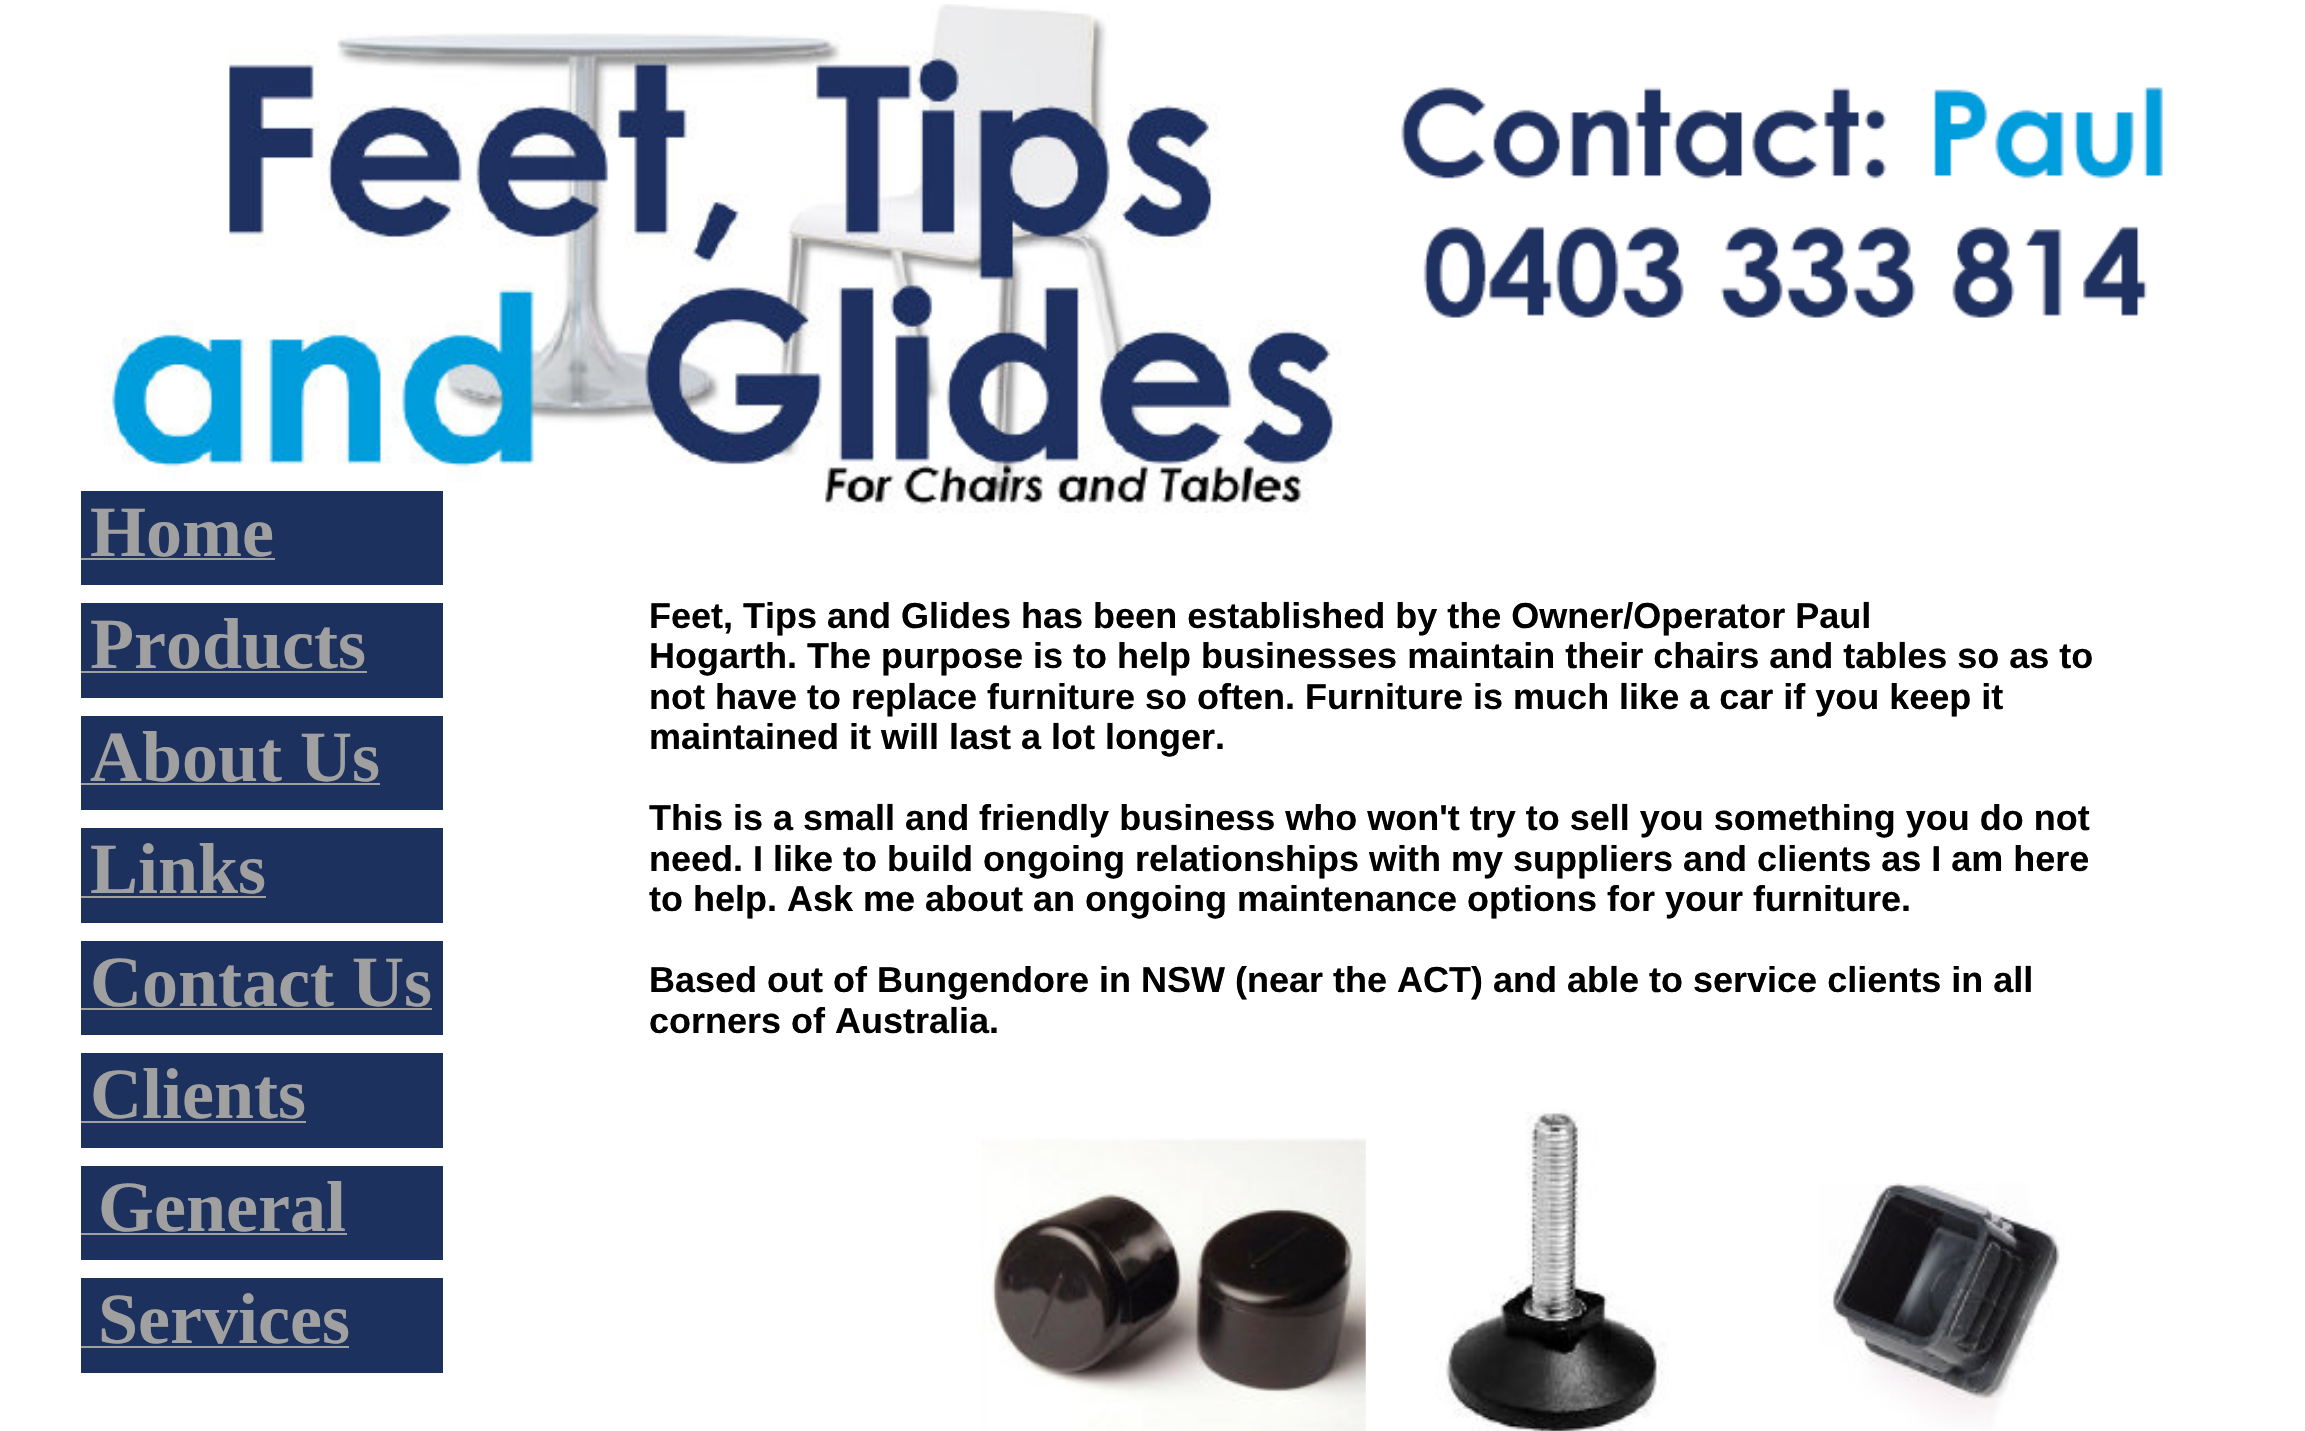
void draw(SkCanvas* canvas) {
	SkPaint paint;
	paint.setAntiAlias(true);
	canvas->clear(0xffffffff);
	canvas->drawImageRect(SkImages::DeferredFromEncodedData(SkData::MakeFromFileName("img1.png")), SkRect::MakeXYWH(103, 4, 1238, 509), SkSamplingOptions());
	canvas->drawImageRect(SkImages::DeferredFromEncodedData(SkData::MakeFromFileName("img2.png")), SkRect::MakeXYWH(1401, 87, 762, 231), SkSamplingOptions());
	paint.setColor(0xff1c315d);
	canvas->drawRect(SkRect::MakeXYWH(81, 491, 362, 94), paint);
	SkFont f1(fontMgr->matchFamilyStyle("Liberation Serif", SkFontStyle::Bold()), 72);
	f1.setSubpixel(true);
	paint.setColor(0xffa0a0a0);
	canvas->drawString("Home", 90, 556, f1, paint);
	canvas->drawRect(SkRect::MakeXYWH(81, 558, 194, 2), paint);
	paint.setColor(0xff1c315d);
	canvas->drawRect(SkRect::MakeXYWH(81, 603, 362, 95), paint);
	paint.setColor(0xffa0a0a0);
	canvas->drawString("Products", 90, 668, f1, paint);
	canvas->drawRect(SkRect::MakeXYWH(81, 671, 286, 2), paint);
	SkFont f2(fontMgr->matchFamilyStyle("Liberation Sans", SkFontStyle::Bold()), 36);
	f2.setSubpixel(true);
	paint.setColor(0xff000000);
	canvas->drawString("Feet, Tips and Glides has been established by the Owner/Operator Paul", 649, 628, f2, paint);
	canvas->drawString("Hogarth. The purpose is to help businesses maintain their chairs and tables so as to", 649, 668, f2, paint);
	canvas->drawString("not have to replace furniture so often. Furniture is much like a car if you keep it", 649, 709, f2, paint);
	canvas->drawString("maintained it will last a lot longer.", 649, 749, f2, paint);
	canvas->drawString("This is a small and friendly business who won't try to sell you something you do not", 649, 830, f2, paint);
	canvas->drawString("need. I like to build ongoing relationships with my suppliers and clients as I am here", 649, 871, f2, paint);
	canvas->drawString("to help. Ask me about an ongoing maintenance options for your furniture.", 649, 911, f2, paint);
	canvas->drawString("Based out of Bungendore in NSW (near the ACT) and able to service clients in all", 649, 992, f2, paint);
	canvas->drawString("corners of Australia.", 649, 1033, f2, paint);
	paint.setColor(0xff1c315d);
	canvas->drawRect(SkRect::MakeXYWH(81, 716, 362, 94), paint);
	paint.setColor(0xffa0a0a0);
	canvas->drawString("About Us", 90, 781, f1, paint);
	canvas->drawRect(SkRect::MakeXYWH(81, 783, 299, 2), paint);
	paint.setColor(0xff1c315d);
	canvas->drawRect(SkRect::MakeXYWH(81, 828, 362, 95), paint);
	paint.setColor(0xffa0a0a0);
	canvas->drawString("Links", 90, 893, f1, paint);
	canvas->drawRect(SkRect::MakeXYWH(81, 896, 185, 2), paint);
	paint.setColor(0xff1c315d);
	canvas->drawRect(SkRect::MakeXYWH(81, 941, 362, 94), paint);
	paint.setColor(0xffa0a0a0);
	canvas->drawString("Contact Us", 90, 1006, f1, paint);
	canvas->drawRect(SkRect::MakeXYWH(81, 1008, 351, 2), paint);
	paint.setColor(0xff1c315d);
	canvas->drawRect(SkRect::MakeXYWH(81, 1053, 362, 95), paint);
	paint.setColor(0xffa0a0a0);
	canvas->drawString("Clients", 90, 1118, f1, paint);
	canvas->drawRect(SkRect::MakeXYWH(81, 1121, 225, 2), paint);
	paint.setColor(0xff1c315d);
	canvas->drawRect(SkRect::MakeXYWH(81, 1166, 362, 94), paint);
	paint.setColor(0xffa0a0a0);
	canvas->drawString("General", 98, 1231, f1, paint);
	canvas->drawRect(SkRect::MakeXYWH(81, 1233, 266, 2), paint);
	canvas->drawImageRect(SkImages::DeferredFromEncodedData(SkData::MakeFromFileName("img3.png")), SkRect::MakeXYWH(981, 1138, 385, 293), SkSamplingOptions());
	canvas->drawImageRect(SkImages::DeferredFromEncodedData(SkData::MakeFromFileName("img4.png")), SkRect::MakeXYWH(1436, 1108, 233, 323), SkSamplingOptions());
	canvas->drawImageRect(SkImages::DeferredFromEncodedData(SkData::MakeFromFileName("img5.png")), SkRect::MakeXYWH(1819, 1183, 246, 247), SkSamplingOptions());
	paint.setColor(0xff1c315d);
	canvas->drawRect(SkRect::MakeXYWH(81, 1278, 362, 95), paint);
	paint.setColor(0xffa0a0a0);
	canvas->drawString("Services", 98, 1343, f1, paint);
	canvas->drawRect(SkRect::MakeXYWH(81, 1346, 268, 2), paint);
}
